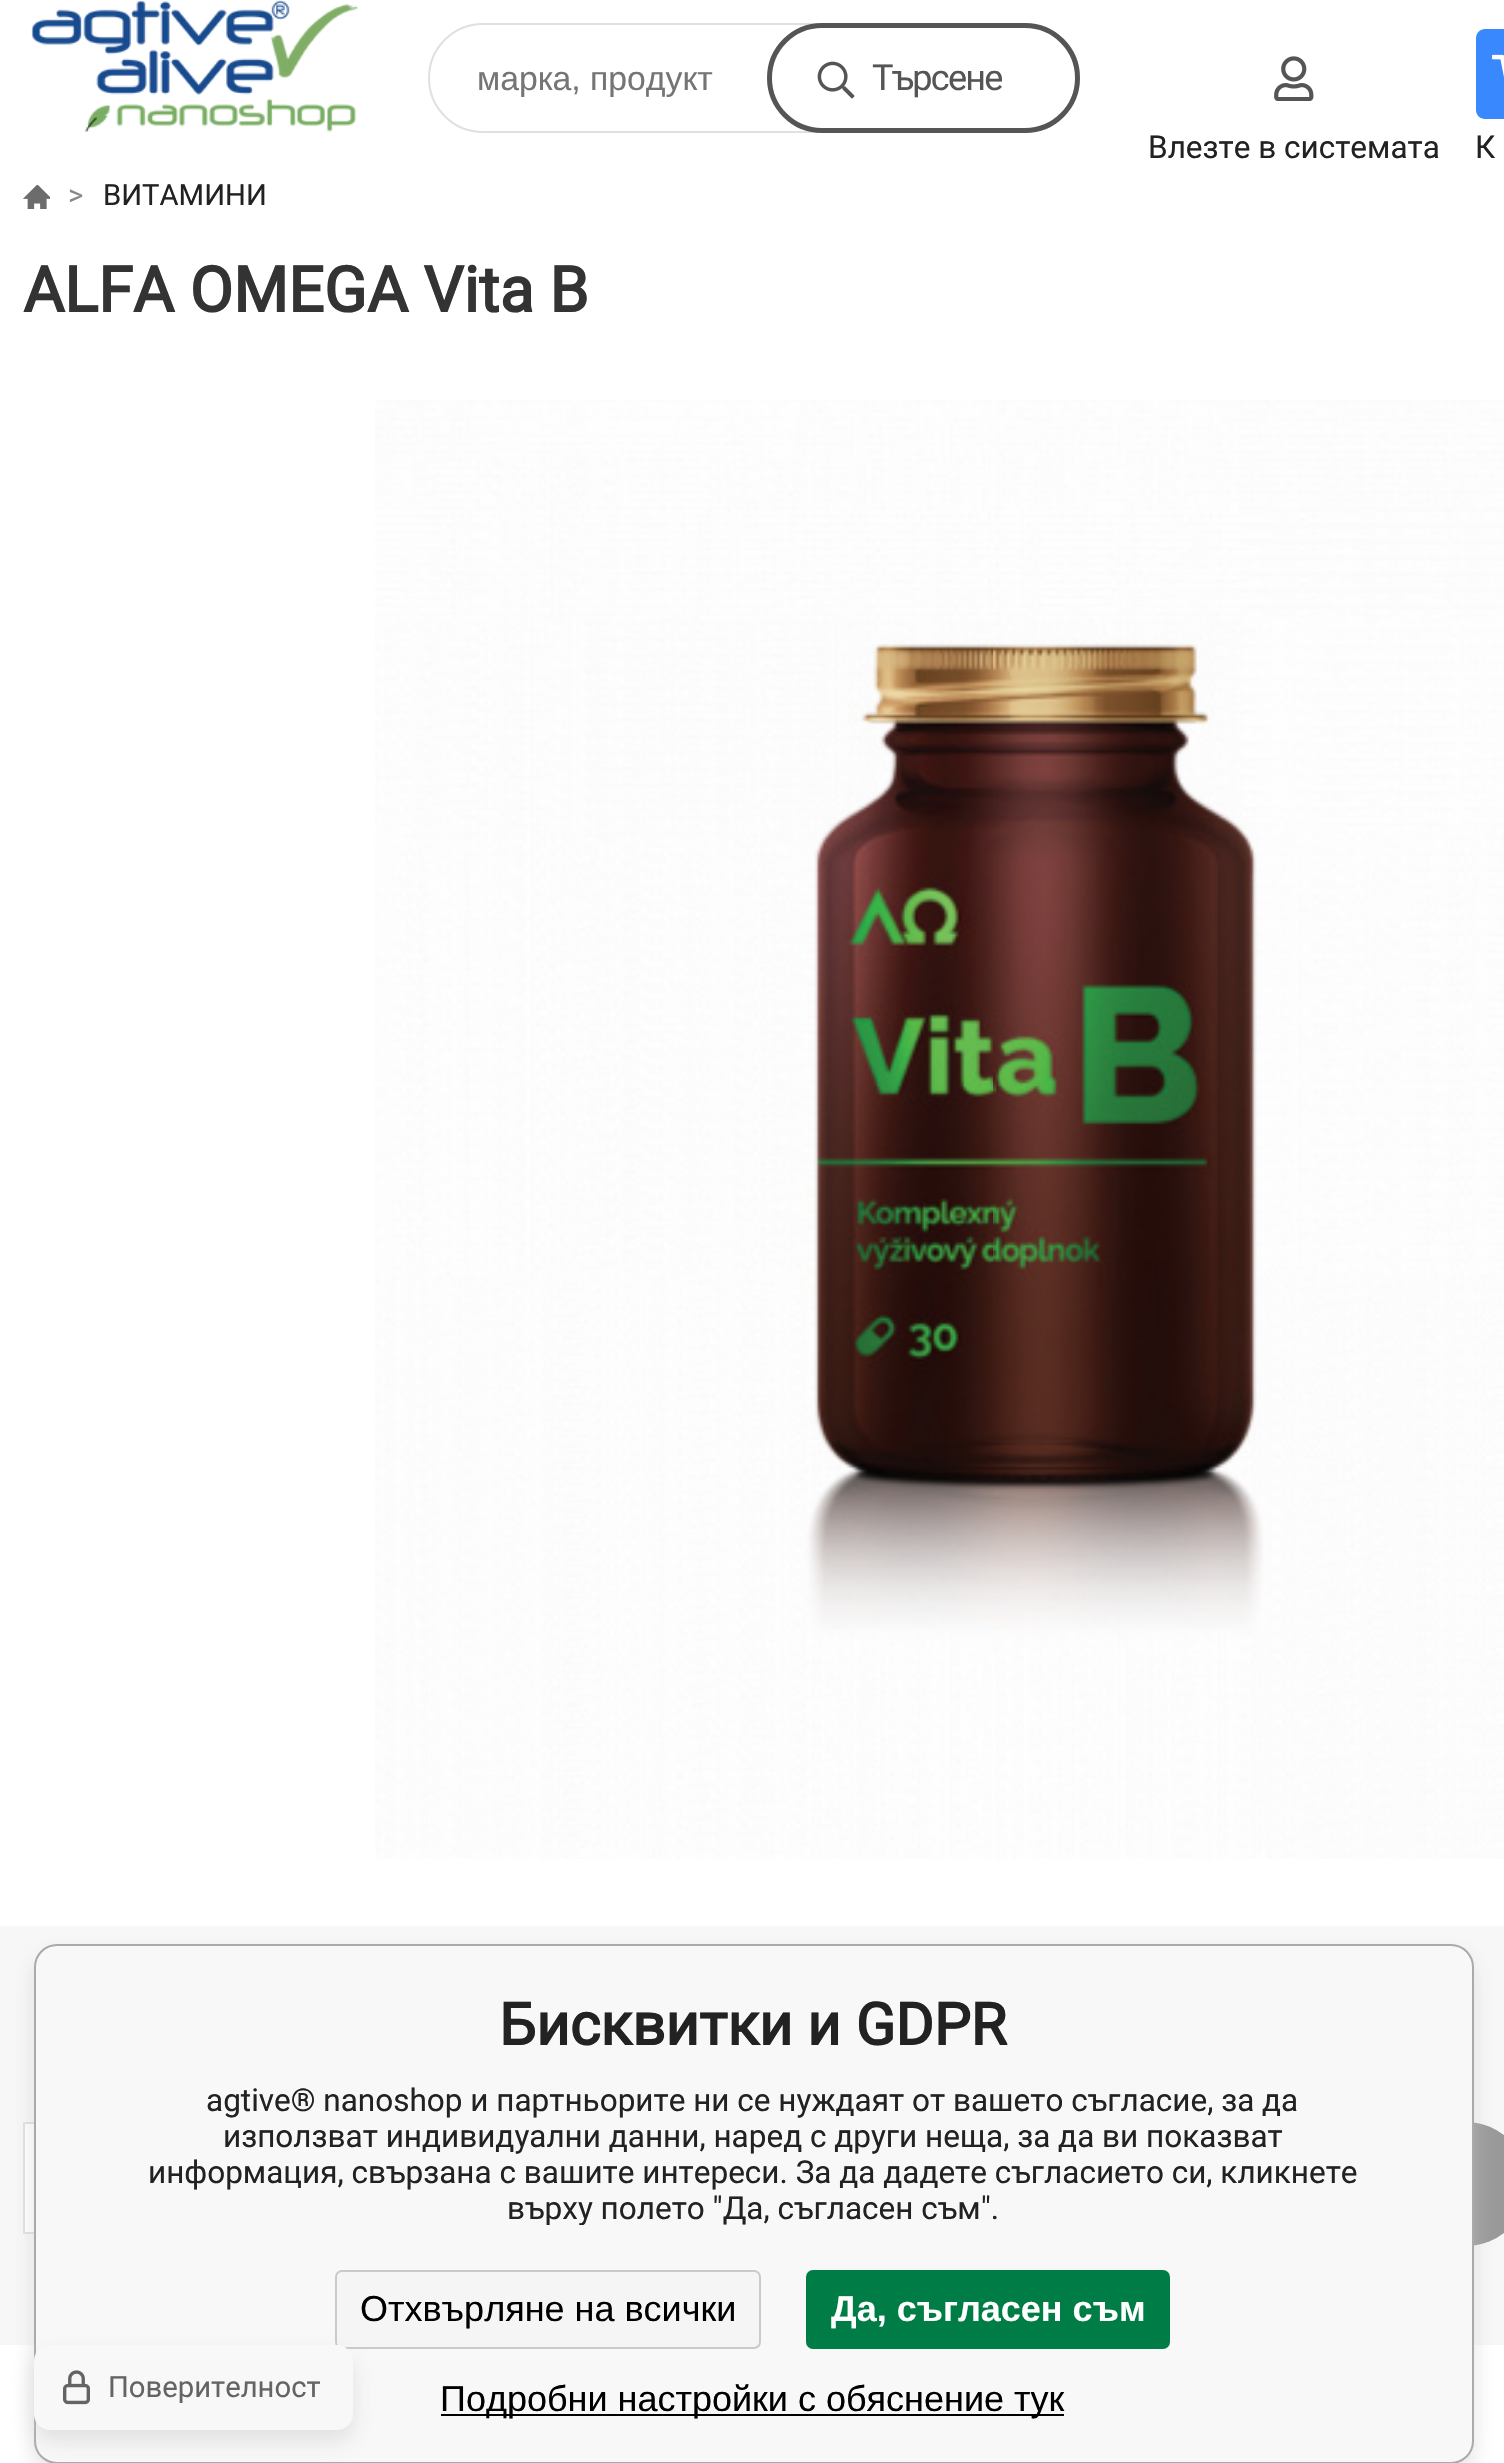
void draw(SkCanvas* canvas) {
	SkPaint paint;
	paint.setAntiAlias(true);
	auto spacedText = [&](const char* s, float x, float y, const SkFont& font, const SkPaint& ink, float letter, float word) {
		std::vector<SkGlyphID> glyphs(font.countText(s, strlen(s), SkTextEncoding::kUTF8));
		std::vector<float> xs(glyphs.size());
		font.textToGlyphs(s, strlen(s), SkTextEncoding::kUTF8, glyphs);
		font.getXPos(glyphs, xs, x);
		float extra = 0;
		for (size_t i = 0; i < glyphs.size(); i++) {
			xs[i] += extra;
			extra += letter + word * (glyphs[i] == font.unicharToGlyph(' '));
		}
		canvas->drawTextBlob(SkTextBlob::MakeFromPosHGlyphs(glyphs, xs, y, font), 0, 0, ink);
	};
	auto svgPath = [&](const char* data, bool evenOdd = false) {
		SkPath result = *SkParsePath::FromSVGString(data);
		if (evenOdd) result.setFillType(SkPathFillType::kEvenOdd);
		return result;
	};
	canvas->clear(0xffffffff);
	canvas->drawImageRect(SkImages::DeferredFromEncodedData(SkData::MakeFromFileName("img1.png")), SkRect::MakeXYWH(31, 0, 327, 132), SkSamplingOptions());
	paint.setStroke(true);
	paint.setStrokeWidth(2);
	paint.setColor(0xffe0e0e0);
	canvas->drawRoundRect(SkRect::MakeXYWH(429, 24, 650, 108), 54, 54, paint);
	SkFont f1(fontMgr->matchFamilyStyle("Liberation Sans", SkFontStyle::Normal()), 33.75);
	f1.setSubpixel(true);
	paint.setStroke(false);
	paint.setColor(0xff757575);
	canvas->drawString("марка, продукт", 477, 90, f1, paint);
	canvas->drawImageRect(SkImages::DeferredFromEncodedData(SkData::MakeFromFileName("img2.png")), SkRect::MakeXYWH(817, 61, 38, 38), SkSamplingOptions());
	paint.setStroke(true);
	paint.setStrokeWidth(5);
	paint.setColor(0xff555555);
	canvas->drawRoundRect(SkRect::MakeXYWH(769.5, 25.5, 308, 105), 52.5, 52.5, paint);
	SkFont f2(fontMgr->matchFamilyStyle("Roboto", SkFontStyle::Normal()), 36);
	f2.setSubpixel(true);
	paint.setStroke(false);
	spacedText("Търсене", 872, 90, f2, paint, -1.75, 0);
	canvas->drawImageRect(SkImages::DeferredFromEncodedData(SkData::MakeFromFileName("img3.png")), SkRect::MakeXYWH(1274, 56, 40, 45), SkSamplingOptions());
	SkFont f3(fontMgr->matchFamilyStyle("Roboto", SkFontStyle::Normal()), 31.5);
	f3.setSubpixel(true);
	paint.setColor(0xff222222);
	canvas->drawString("Влезте в системата", 1148, 158, f3, paint);
	paint.setColor(0xff3a88fe);
	canvas->drawPath(svgPath("M1485 29H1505V119H1485C1480 119 1476 115 1476 110V38C1476 33 1480 29 1485 29Z"), paint);
	canvas->drawImageRect(SkImages::DeferredFromEncodedData(SkData::MakeFromFileName("img4.png")), SkRect::MakeXYWH(1492, 54, 12, 23), SkSamplingOptions());
	paint.setColor(0xff222222);
	canvas->drawString("К", 1475, 158, f3, paint);
	canvas->drawImageRect(SkImages::DeferredFromEncodedData(SkData::MakeFromFileName("img5.png")), SkRect::MakeXYWH(23, 185, 27, 24), SkSamplingOptions());
	SkFont f4(fontMgr->matchFamilyStyle("Roboto", SkFontStyle::Normal()), 29.25);
	f4.setSubpixel(true);
	paint.setColor(0xff888888);
	canvas->drawString(">", 68, 205, f4, paint);
	paint.setColor(0xff222222);
	canvas->drawString("ВИТАМИНИ", 103, 205, f4, paint);
	SkFont f5(fontMgr->matchFamilyStyle("Roboto", SkFontStyle::Bold()), 63);
	f5.setSubpixel(true);
	paint.setColor(0xff333333);
	canvas->drawString("ALFA OMEGA Vita B", 23, 312, f5, paint);
	canvas->drawImageRect(SkImages::DeferredFromEncodedData(SkData::MakeFromFileName("img6.png")), SkRect::MakeXYWH(375, 400, 1129, 1459), SkSamplingOptions());
	paint.setColor(0xfff7f7f7);
	canvas->drawRect(SkRect::MakeXYWH(0, 1926, 1504, 419), paint);
	paint.setColor(0xffffffff);
	canvas->drawRect(SkRect::MakeXYWH(25, 2124, 9, 108), paint);
	paint.setStroke(true);
	paint.setStrokeWidth(2);
	paint.setColor(0xffe0e0e0);
	canvas->drawRect(SkRect::MakeXYWH(24, 2123, 200, 110), paint);
	paint.setStroke(false);
	paint.setColor(0xff999999);
	canvas->drawRoundRect(SkRect::MakeXYWH(853, 2122, 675, 124), 62, 62, paint);
	paint.setColor(0x80c8c8c8);
	paint.setMaskFilter(SkMaskFilter::MakeBlur(kNormal_SkBlurStyle, 11));
	canvas->drawRoundRect(SkRect::MakeXYWH(34, 1955, 1440, 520), 23, 23, paint);
	paint.setMaskFilter(nullptr);
	paint.setColor(0xfff8f8f8);
	canvas->drawRoundRect(SkRect::MakeXYWH(35, 1945, 1438, 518), 22, 22, paint);
	paint.setStroke(true);
	paint.setColor(0xffaaaaaa);
	canvas->drawRoundRect(SkRect::MakeXYWH(35, 1945, 1438, 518), 22, 22, paint);
	SkFont f6(fontMgr->matchFamilyStyle("Roboto", SkFontStyle::Bold()), 58.5);
	f6.setSubpixel(true);
	paint.setStroke(false);
	paint.setColor(0xff222222);
	canvas->drawString("Бисквитки и GDPR", 499, 2045, f6, paint);
	canvas->drawString("agtive® nanoshop и партньорите ни се нуждаят от вашето съгласие, за да", 206, 2111, f3, paint);
	canvas->drawString("използват индивидуални данни, наред с други неща, за да ви показват", 223, 2147, f3, paint);
	canvas->drawString("информация, свързана с вашите интереси. За да дадете съгласието си, кликнете", 148, 2183, f3, paint);
	canvas->save();
	canvas->clipRect(SkRect::MakeXYWH(149, 2081, 1210, 144));
	canvas->drawString("върху полето \"Да, съгласен съм\".", 507, 2219, f3, paint);
	canvas->restore();
	paint.setColor(0xfff5f5f5);
	canvas->drawRoundRect(SkRect::MakeXYWH(336, 2271, 424, 77), 6, 6, paint);
	paint.setStroke(true);
	paint.setColor(0xffcacaca);
	canvas->drawRoundRect(SkRect::MakeXYWH(336, 2271, 424, 77), 6, 6, paint);
	SkFont f7(fontMgr->matchFamilyStyle("Liberation Sans", SkFontStyle::Normal()), 36);
	f7.setSubpixel(true);
	paint.setStroke(false);
	paint.setColor(0xff000000);
	canvas->drawString("Отхвърляне на всички", 360, 2321, f7, paint);
	paint.setColor(0xff007c47);
	canvas->drawRoundRect(SkRect::MakeXYWH(807, 2271, 362, 77), 6, 6, paint);
	paint.setStroke(true);
	canvas->drawRoundRect(SkRect::MakeXYWH(807, 2271, 362, 77), 6, 6, paint);
	SkFont f8(fontMgr->matchFamilyStyle("Liberation Sans", SkFontStyle::Bold()), 36);
	f8.setSubpixel(true);
	paint.setStroke(false);
	paint.setColor(0xffffffff);
	canvas->drawString("Да, съгласен съм", 831, 2321, f8, paint);
	paint.setColor(0xff000000);
	canvas->drawRect(SkRect::MakeXYWH(441, 2414, 623, 2), paint);
	canvas->drawString("Подробни настройки с обяснение тук", 440, 2411, f7, paint);
	paint.setColor(0x80c8c8c8);
	paint.setMaskFilter(SkMaskFilter::MakeBlur(kNormal_SkBlurStyle, 11));
	canvas->drawRoundRect(SkRect::MakeXYWH(34, 2356, 319, 85), 16, 16, paint);
	paint.setMaskFilter(nullptr);
	paint.setColor(0xfff8f8f8);
	canvas->drawRoundRect(SkRect::MakeXYWH(34, 2345, 319, 85), 16, 16, paint);
	canvas->drawImageRect(SkImages::DeferredFromEncodedData(SkData::MakeFromFileName("img7.png")), SkRect::MakeXYWH(63, 2370, 27, 35), SkSamplingOptions());
	paint.setColor(0xff646464);
	canvas->drawString("Поверителност", 108, 2397, f4, paint);
}
